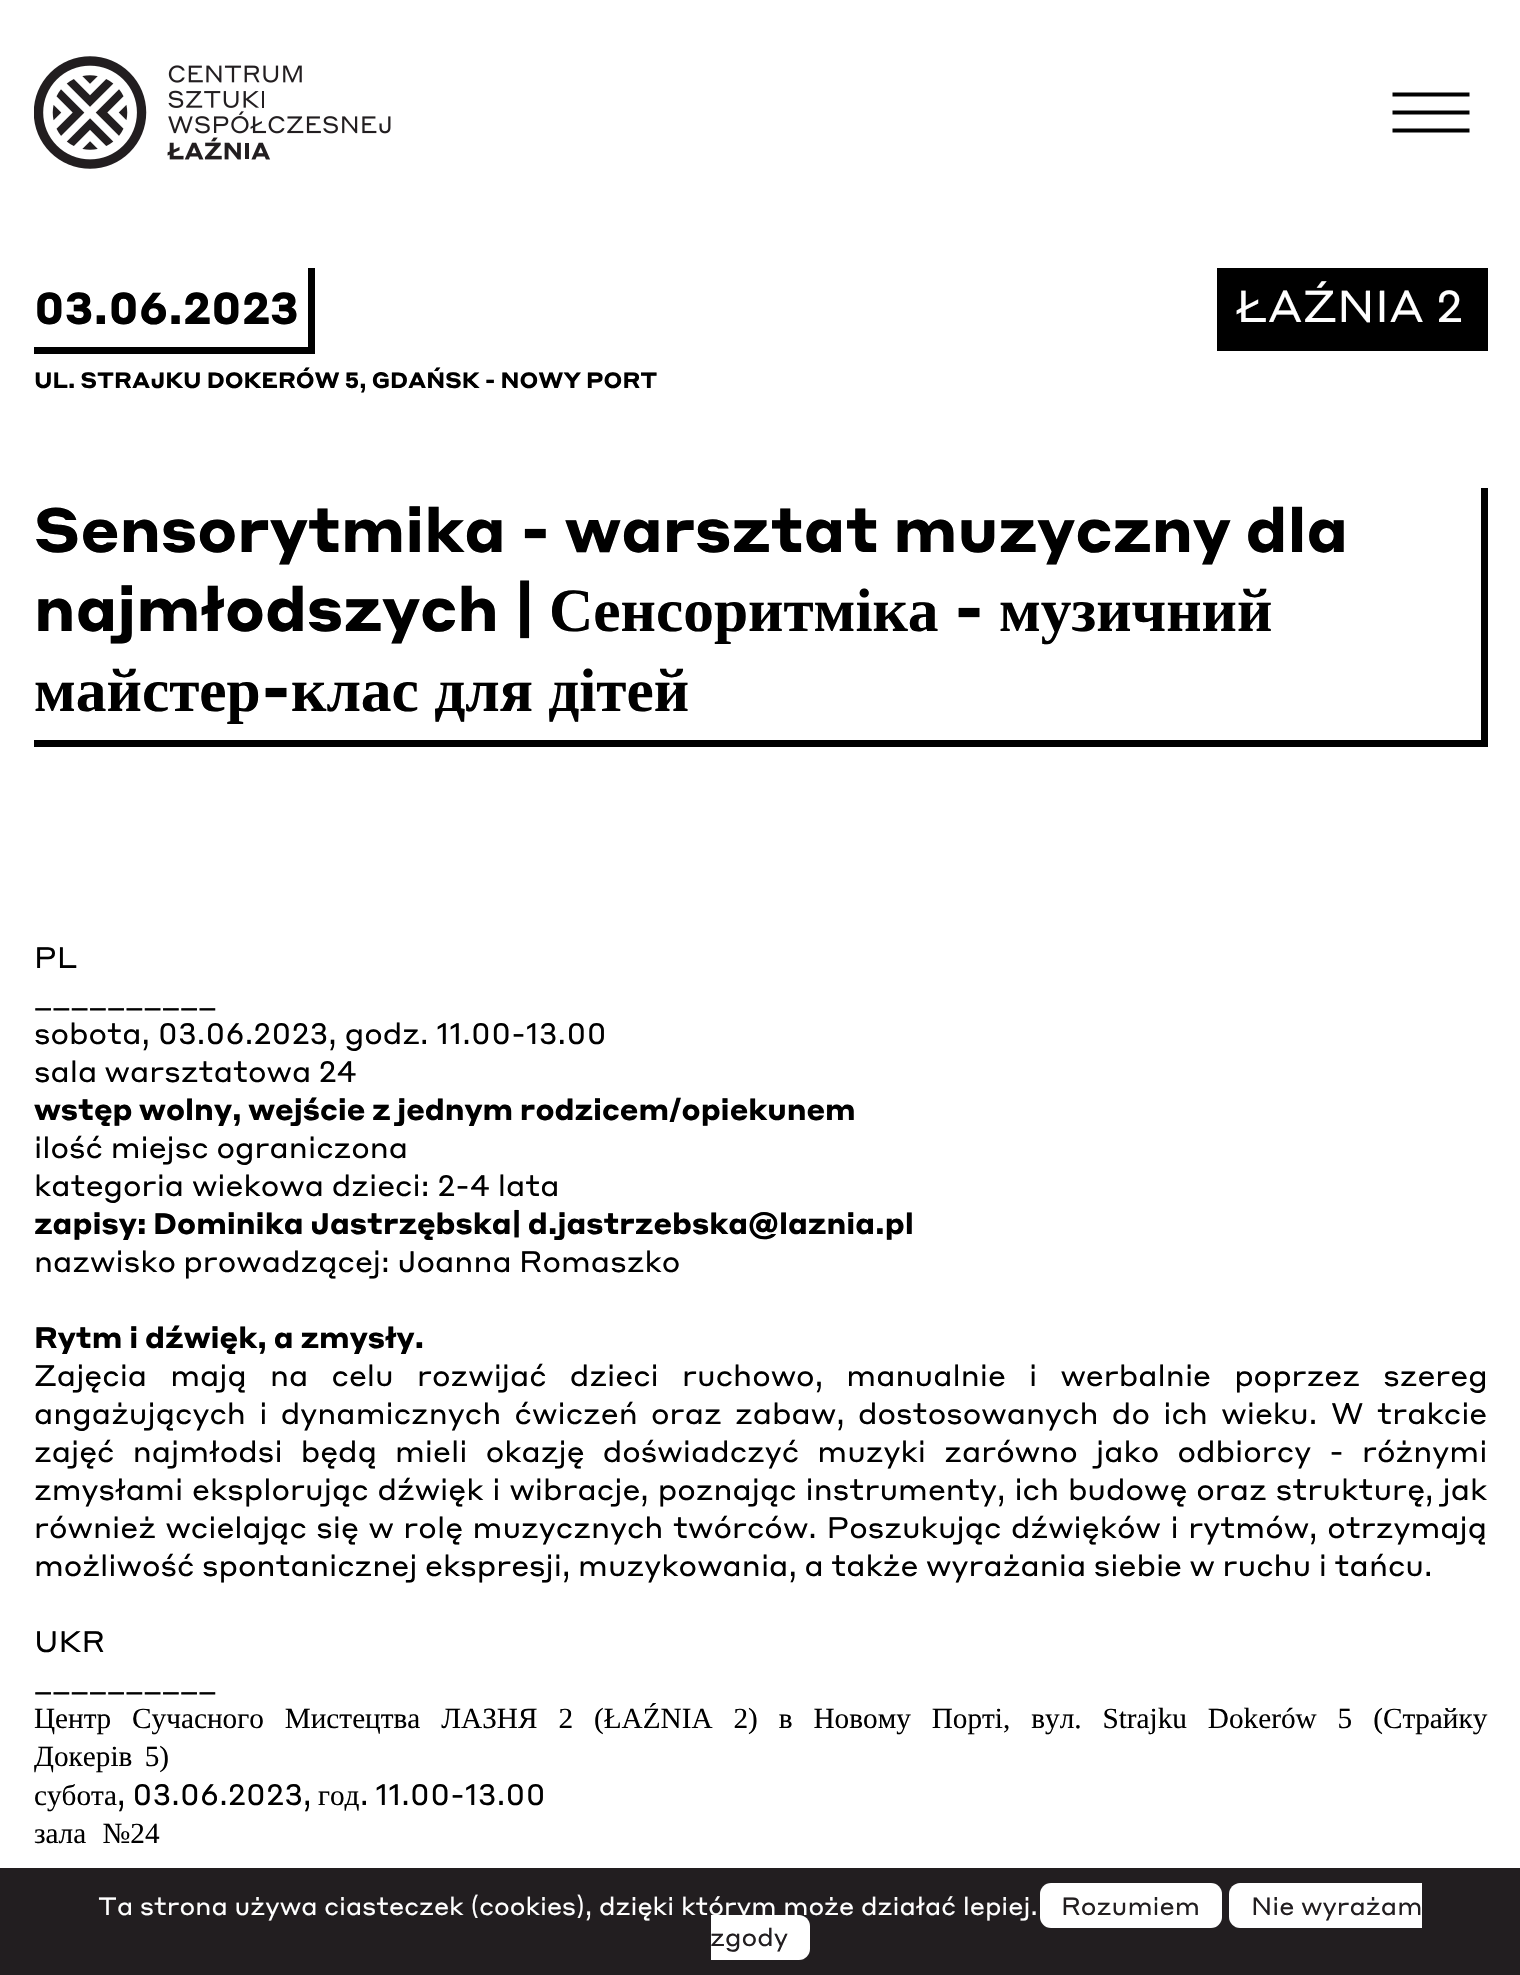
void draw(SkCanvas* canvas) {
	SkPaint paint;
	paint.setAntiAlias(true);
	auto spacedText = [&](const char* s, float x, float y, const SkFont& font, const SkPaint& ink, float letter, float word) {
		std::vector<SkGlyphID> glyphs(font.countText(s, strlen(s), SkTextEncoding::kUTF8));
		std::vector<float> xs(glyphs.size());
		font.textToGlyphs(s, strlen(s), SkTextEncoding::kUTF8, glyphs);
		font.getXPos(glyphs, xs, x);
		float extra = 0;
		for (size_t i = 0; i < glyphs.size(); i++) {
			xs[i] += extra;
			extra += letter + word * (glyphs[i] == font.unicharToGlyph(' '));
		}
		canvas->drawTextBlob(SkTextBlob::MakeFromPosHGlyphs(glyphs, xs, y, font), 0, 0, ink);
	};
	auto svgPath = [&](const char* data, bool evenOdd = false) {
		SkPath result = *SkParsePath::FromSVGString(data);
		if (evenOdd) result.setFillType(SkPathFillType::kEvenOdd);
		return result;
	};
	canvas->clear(0xffffffff);
	canvas->drawImageRect(SkImages::DeferredFromEncodedData(SkData::MakeFromFileName("img1.png")), SkRect::MakeXYWH(34, 56, 357, 113), SkSamplingOptions());
	paint.setStroke(true);
	paint.setStrokeWidth(4.2);
	paint.setColor(0xff010101);
	canvas->drawPath(svgPath("M1392.5 94.5H1469.5"), paint);
	canvas->drawPath(svgPath("M1392.5 112.5H1469.5"), paint);
	canvas->drawPath(svgPath("M1392.5 130.5H1469.5"), paint);
	paint.setStroke(false);
	paint.setColor(0xff000000);
	canvas->drawRect(SkRect::MakeXYWH(308, 268, 7, 85), paint);
	canvas->drawRect(SkRect::MakeXYWH(34, 347, 281, 7), paint);
	SkFont f1(fontMgr->matchFamilyStyle("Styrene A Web", SkFontStyle::Bold()), 44);
	f1.setSubpixel(true);
	canvas->drawString("03.06.2023", 34, 324, f1, paint);
	canvas->drawRect(SkRect::MakeXYWH(1217, 268, 271, 83), paint);
	SkFont f2(fontMgr->matchFamilyStyle("Styrene A Web", SkFontStyle::Normal()), 44);
	f2.setSubpixel(true);
	paint.setColor(0xffffffff);
	canvas->drawString("ŁAŹNIA 2", 1236, 322, f2, paint);
	SkFont f3(fontMgr->matchFamilyStyle("Styrene A Web", SkFontStyle::Bold()), 21.95);
	f3.setSubpixel(true);
	paint.setColor(0xff000000);
	spacedText("UL. STRAJKU DOKERÓW 5, GDAŃSK - NOWY PORT", 34, 388, f3, paint, 0, -0.5);
	canvas->drawRect(SkRect::MakeXYWH(1481, 488, 7, 259), paint);
	canvas->drawRect(SkRect::MakeXYWH(34, 740, 1453, 7), paint);
	SkFont f4(fontMgr->matchFamilyStyle("Styrene A Web", SkFontStyle::Bold()), 61.4);
	f4.setSubpixel(true);
	spacedText("Sensorytmika - warsztat muzyczny dla", 34, 552, f4, paint, 0, -1);
	canvas->drawString("najmłodszych |", 34, 631, f4, paint);
	SkFont f5(fontMgr->matchFamilyStyle("Liberation Serif", SkFontStyle::Bold()), 61.4);
	f5.setSubpixel(true);
	canvas->drawString("Сенсоритміка", 549, 631, f5, paint);
	canvas->drawString("-", 954, 631, f4, paint);
	canvas->drawString("музичний", 999, 631, f5, paint);
	canvas->drawString("майстер", 34, 711, f5, paint);
	canvas->drawString("-", 261, 711, f4, paint);
	canvas->drawString("клас для дітей", 291, 711, f5, paint);
	SkFont f6(fontMgr->matchFamilyStyle("Styrene A Web", SkFontStyle::Normal()), 29.25);
	f6.setSubpixel(true);
	canvas->drawString("PL", 34, 968, f6, paint);
	canvas->drawString("__________", 34, 1006, f6, paint);
	canvas->drawString("sobota, 03.06.2023, godz. 11.00-13.00", 34, 1044, f6, paint);
	spacedText("sala warsztatowa 24", 34, 1082, f6, paint, 0, -0.5);
	SkFont f7(fontMgr->matchFamilyStyle("Styrene A Web", SkFontStyle::Bold()), 29.25);
	f7.setSubpixel(true);
	spacedText("wstęp wolny, wejście z jednym rodzicem/opiekunem", 34, 1120, f7, paint, 0, -0.75);
	canvas->drawString("ilość miejsc ograniczona", 34, 1158, f6, paint);
	canvas->drawString("kategoria wiekowa dzieci: 2-4 lata", 34, 1196, f6, paint);
	spacedText("zapisy: Dominika Jastrzębska| d.jastrzebska@laznia.pl", 34, 1234, f7, paint, 0, -1);
	spacedText("nazwisko prowadzącej: Joanna Romaszko", 34, 1272, f6, paint, 0, -0.5);
	spacedText("Rytm i dźwięk, a zmysły.", 34, 1348, f7, paint, 0, -0.5);
	spacedText("Zajęcia mają na celu rozwijać dzieci ruchowo, manualnie i werbalnie poprzez szereg", 34, 1386, f6, paint, 0, 15.4);
	spacedText("angażujących i dynamicznych ćwiczeń oraz zabaw, dostosowanych do ich wieku. W trakcie", 34, 1424, f6, paint, 0, 5.6);
	spacedText("zajęć najmłodsi będą mieli okazję doświadczyć muzyki zarówno jako odbiorcy - różnymi", 34, 1462, f6, paint, 0, 10.4);
	spacedText("zmysłami eksplorując dźwięk i wibracje, poznając instrumenty, ich budowę oraz strukturę, jak", 34, 1500, f6, paint, 0, 1.1);
	spacedText("również wcielając się w rolę muzycznych twórców. Poszukując dźwięków i rytmów, otrzymają", 34, 1538, f6, paint, 0, 1.75);
	spacedText("możliwość spontanicznej ekspresji, muzykowania, a także wyrażania siebie w ruchu i tańcu.", 34, 1576, f6, paint, 0, -0.25);
	canvas->drawString("UKR", 34, 1652, f6, paint);
	canvas->drawString("__________", 34, 1690, f6, paint);
	SkFont f8(fontMgr->matchFamilyStyle("Liberation Serif", SkFontStyle::Normal()), 29.25);
	f8.setSubpixel(true);
	spacedText("Центр Сучасного Мистецтва ЛАЗНЯ 2 (ŁAŹNIA 2) в Новому Порті, вул. Strajku Dokerów 5 (Страйкy", 34, 1728, f8, paint, 0, 13.6);
	spacedText("Докерів 5)", 34, 1766, f8, paint, 0, 5);
	canvas->drawString("субота", 34, 1805, f8, paint);
	spacedText(", 03.06.2023,", 117, 1805, f6, paint, 0, -1);
	canvas->drawString("год", 318, 1805, f8, paint);
	spacedText(". 11.00-13.00", 360, 1805, f6, paint, 0, -1);
	spacedText("зала №24", 34, 1843, f8, paint, 0, 9);
	paint.setColor(0xff221e20);
	canvas->drawRect(SkRect::MakeXYWH(0, 1868, 1520, 107), paint);
	SkFont f9(fontMgr->matchFamilyStyle("Styrene A Web", SkFontStyle::Normal()), 24.75);
	f9.setSubpixel(true);
	paint.setColor(0xffffffff);
	spacedText("Ta strona używa ciasteczek (cookies), dzięki którym może działać lepiej.", 98, 1915, f9, paint, 0, 0.25);
	canvas->drawRoundRect(SkRect::MakeXYWH(1040, 1883, 182, 45), 11, 11, paint);
	paint.setColor(0xff221e20);
	canvas->drawString("Rozumiem", 1061, 1915, f9, paint);
	paint.setColor(0xffffffff);
	canvas->drawPath(svgPath("M1240 1883H1422V1928H1240C1234 1928 1229 1923 1229 1917V1894C1229 1888 1234 1883 1240 1883Z"), paint);
	paint.setColor(0xff221e20);
	canvas->drawString("Nie wyrażam", 1251, 1915, f9, paint);
	paint.setColor(0xffffffff);
	canvas->drawPath(svgPath("M711 1915H799C805 1915 810 1920 810 1926V1949C810 1955 805 1960 799 1960H711Z"), paint);
	paint.setColor(0xff221e20);
	canvas->drawString("zgody", 710, 1946, f9, paint);
}
